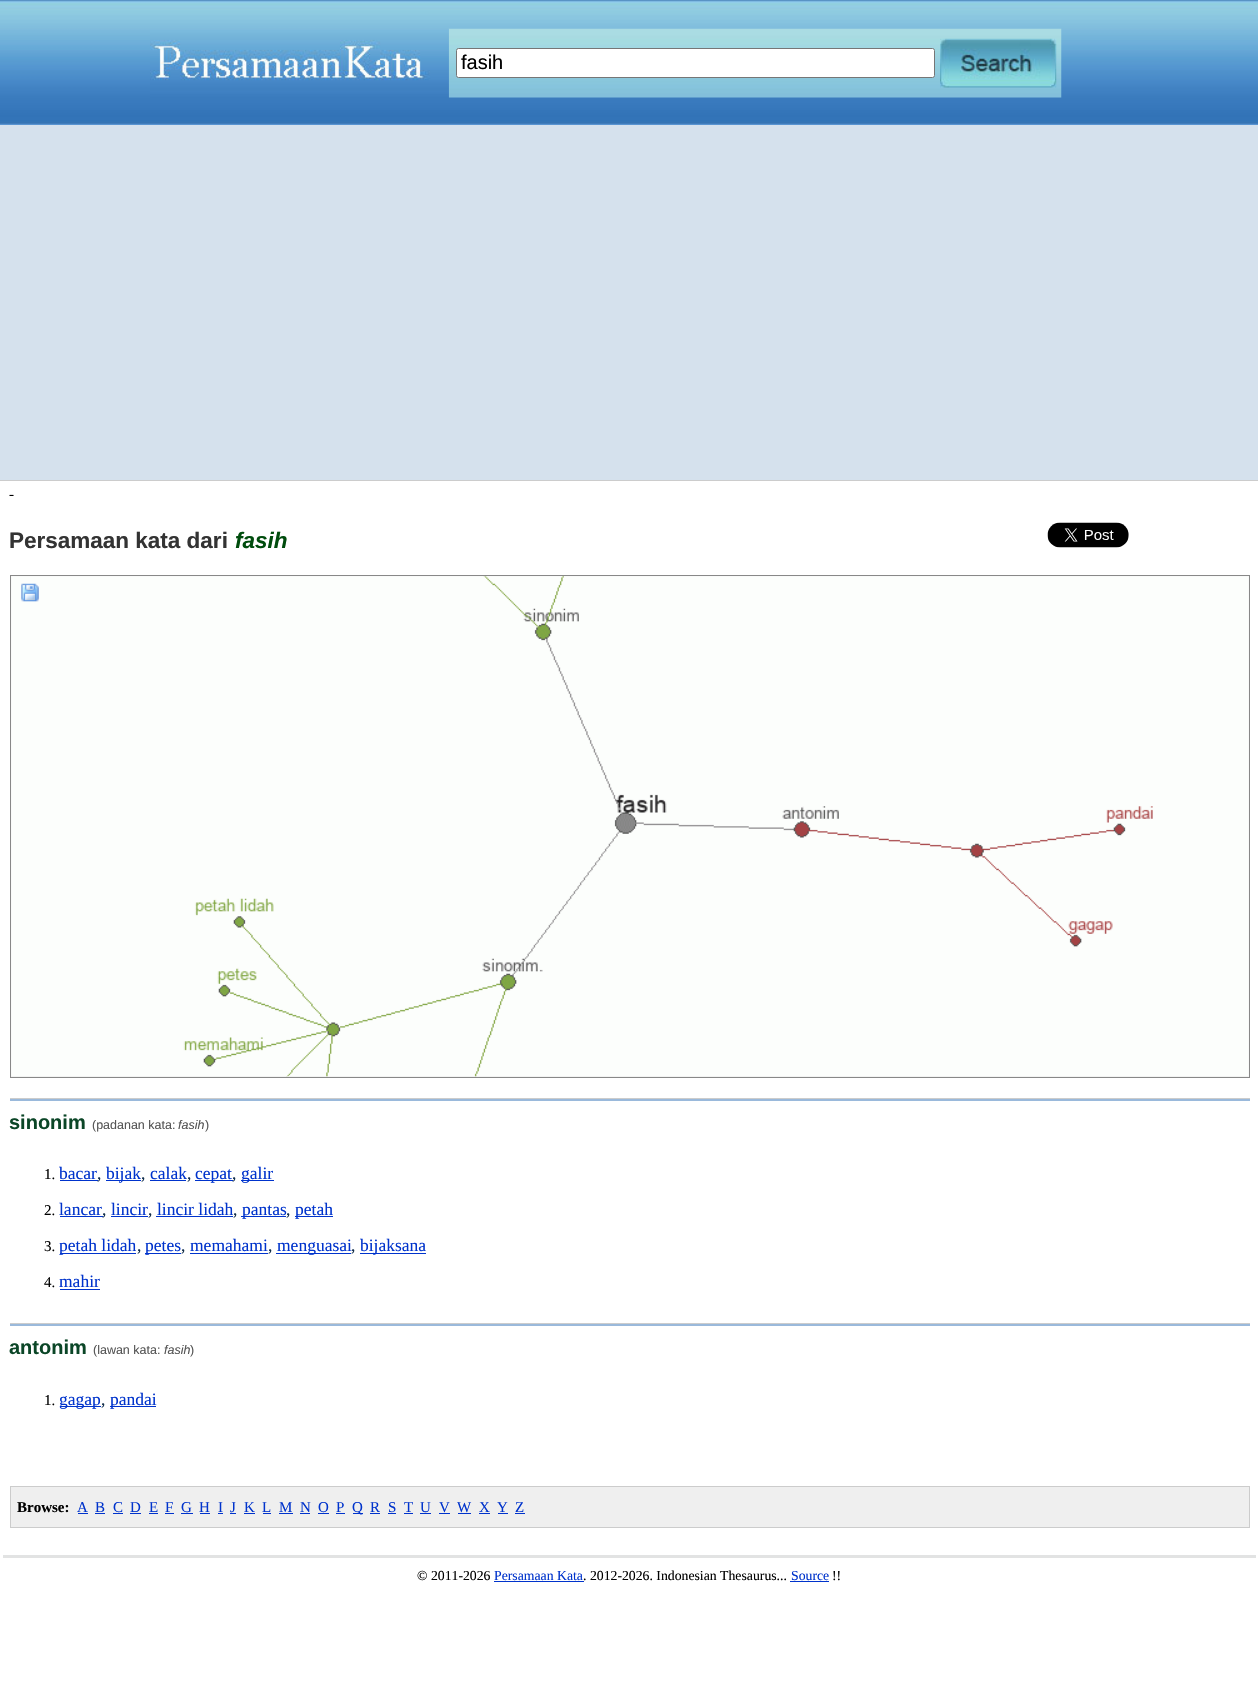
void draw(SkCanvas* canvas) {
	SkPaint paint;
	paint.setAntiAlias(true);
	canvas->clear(0xffffffff);
	canvas->drawImageRect(SkImages::DeferredFromEncodedData(SkData::MakeFromFileName("img1.png")), SkRect::MakeXYWH(0, 0, 1258, 125), SkSamplingOptions());
	canvas->drawImageRect(SkImages::DeferredFromEncodedData(SkData::MakeFromFileName("img3.png")), SkRect::MakeXYWH(448, 28, 614, 70), SkSamplingOptions());
	canvas->drawImageRect(SkImages::DeferredFromEncodedData(SkData::MakeFromFileName("img2.png")), SkRect::MakeXYWH(150, 29, 299, 69), SkSamplingOptions());
	paint.setColor(0xffffffff);
	canvas->drawRoundRect(SkRect::MakeXYWH(456.5, 48.5, 478, 29), 2, 2, paint);
	paint.setStroke(true);
	paint.setStrokeWidth(1);
	paint.setColor(0xff767676);
	canvas->drawRoundRect(SkRect::MakeXYWH(456.5, 48.5, 478, 29), 2, 2, paint);
	SkFont f1(fontMgr->matchFamilyStyle("Liberation Sans", SkFontStyle::Normal()), 20);
	f1.setSubpixel(true);
	paint.setStroke(false);
	paint.setColor(0xff000000);
	canvas->drawString("fasih", 461, 69, f1, paint);
	canvas->drawImageRect(SkImages::DeferredFromEncodedData(SkData::MakeFromFileName("img4.png")), SkRect::MakeXYWH(940, 38, 117, 50), SkSamplingOptions());
	paint.setColor(0xffd5e1ed);
	canvas->drawRect(SkRect::MakeXYWH(0, 125, 1258, 355), paint);
	paint.setColor(0xffcccccc);
	canvas->drawRect(SkRect::MakeXYWH(0, 480, 1258, 1), paint);
	SkFont f2(fontMgr->matchFamilyStyle("Liberation Serif", SkFontStyle::Normal()), 15);
	f2.setSubpixel(true);
	paint.setColor(0xff000000);
	canvas->drawString("-", 9, 499, f2, paint);
	SkFont f3(fontMgr->matchFamilyStyle("Liberation Sans", SkFontStyle::Bold()), 22.5);
	f3.setSubpixel(true);
	paint.setColor(0xff333333);
	canvas->drawString("Persamaan kata dari", 9, 548, f3, paint);
	SkFont f4(fontMgr->matchFamilyStyle("Liberation Sans", SkFontStyle::BoldItalic()), 22.5);
	f4.setSubpixel(true);
	paint.setColor(0xff004c0d);
	canvas->drawString("fasih", 235, 548, f4, paint);
	canvas->drawImageRect(SkImages::DeferredFromEncodedData(SkData::MakeFromFileName("img5.png")), SkRect::MakeXYWH(1047, 522, 82, 26), SkSamplingOptions());
	paint.setColor(0xffefefef);
	canvas->drawRect(SkRect::MakeXYWH(10.5, 575.5, 1239, 502), paint);
	paint.setStroke(true);
	paint.setColor(0xff888888);
	canvas->drawRect(SkRect::MakeXYWH(10.5, 575.5, 1239, 502), paint);
	canvas->drawImageRect(SkImages::DeferredFromEncodedData(SkData::MakeFromFileName("img6.png")), SkRect::MakeXYWH(11, 576, 1238, 501), SkSamplingOptions());
	canvas->drawImageRect(SkImages::DeferredFromEncodedData(SkData::MakeFromFileName("img7.png")), SkRect::MakeXYWH(21, 583, 18, 19), SkSamplingOptions());
	paint.setStroke(false);
	paint.setColor(0xff9ab9db);
	canvas->drawRect(SkRect::MakeXYWH(10, 1099, 1240, 2), paint);
	paint.setColor(0xffcccccc);
	canvas->drawRect(SkRect::MakeXYWH(10, 1098, 1240, 1), paint);
	SkFont f5(fontMgr->matchFamilyStyle("Liberation Sans", SkFontStyle::Bold()), 20);
	f5.setSubpixel(true);
	paint.setColor(0xff0b4627);
	canvas->drawString("sinonim", 9, 1129, f5, paint);
	SkFont f6(fontMgr->matchFamilyStyle("Liberation Sans", SkFontStyle::Normal()), 12.5);
	f6.setSubpixel(true);
	paint.setColor(0xff555555);
	canvas->drawString("(padanan kata:", 92, 1129, f6, paint);
	SkFont f7(fontMgr->matchFamilyStyle("Liberation Sans", SkFontStyle::Italic()), 12.5);
	f7.setSubpixel(true);
	canvas->drawString("fasih", 178, 1129, f7, paint);
	canvas->drawString(")", 205, 1129, f6, paint);
	paint.setColor(0xff000000);
	canvas->drawString("1.", 44, 1179, f2, paint);
	SkFont f8(fontMgr->matchFamilyStyle("Liberation Serif", SkFontStyle::Normal()), 17.5);
	f8.setSubpixel(true);
	paint.setColor(0xff0033cc);
	canvas->drawString("bacar", 59, 1179, f8, paint);
	canvas->drawRect(SkRect::MakeXYWH(60, 1180, 38, 1), paint);
	paint.setColor(0xff112d49);
	canvas->drawString(",", 97, 1179, f8, paint);
	paint.setColor(0xff0033cc);
	canvas->drawRect(SkRect::MakeXYWH(106, 1180, 35, 1), paint);
	canvas->drawString("bijak", 106, 1179, f8, paint);
	paint.setColor(0xff112d49);
	canvas->drawString(",", 141, 1179, f8, paint);
	paint.setColor(0xff0033cc);
	canvas->drawString("calak", 150, 1179, f8, paint);
	canvas->drawRect(SkRect::MakeXYWH(150, 1180, 36, 1), paint);
	paint.setColor(0xff112d49);
	canvas->drawString(",", 187, 1179, f8, paint);
	paint.setColor(0xff0033cc);
	canvas->drawRect(SkRect::MakeXYWH(195, 1180, 38, 1), paint);
	canvas->drawString("cepat", 195, 1179, f8, paint);
	paint.setColor(0xff112d49);
	canvas->drawString(",", 232, 1179, f8, paint);
	paint.setColor(0xff0033cc);
	canvas->drawRect(SkRect::MakeXYWH(241, 1180, 33, 1), paint);
	canvas->drawString("galir", 241, 1179, f8, paint);
	paint.setColor(0xff000000);
	canvas->drawString("2.", 44, 1215, f2, paint);
	paint.setColor(0xff0033cc);
	canvas->drawString("lancar", 59, 1215, f8, paint);
	canvas->drawRect(SkRect::MakeXYWH(60, 1216, 43, 1), paint);
	paint.setColor(0xff112d49);
	canvas->drawString(",", 102, 1215, f8, paint);
	paint.setColor(0xff0033cc);
	canvas->drawString("lincir", 111, 1215, f8, paint);
	canvas->drawRect(SkRect::MakeXYWH(111, 1216, 37, 1), paint);
	paint.setColor(0xff112d49);
	canvas->drawString(",", 148, 1215, f8, paint);
	paint.setColor(0xff0033cc);
	canvas->drawString("lincir lidah", 157, 1215, f8, paint);
	canvas->drawRect(SkRect::MakeXYWH(156, 1216, 77, 1), paint);
	paint.setColor(0xff112d49);
	canvas->drawString(",", 233, 1215, f8, paint);
	paint.setColor(0xff0033cc);
	canvas->drawRect(SkRect::MakeXYWH(241, 1216, 45, 1), paint);
	canvas->drawString("pantas", 242, 1215, f8, paint);
	paint.setColor(0xff112d49);
	canvas->drawString(",", 286, 1215, f8, paint);
	paint.setColor(0xff0033cc);
	canvas->drawRect(SkRect::MakeXYWH(295, 1216, 38, 1), paint);
	canvas->drawString("petah", 295, 1215, f8, paint);
	paint.setColor(0xff000000);
	canvas->drawString("3.", 44, 1251, f2, paint);
	paint.setColor(0xff0033cc);
	canvas->drawRect(SkRect::MakeXYWH(60, 1253, 76, 1), paint);
	canvas->drawString("petah lidah", 59, 1251, f8, paint);
	paint.setColor(0xff112d49);
	canvas->drawString(",", 137, 1251, f8, paint);
	paint.setColor(0xff0033cc);
	canvas->drawRect(SkRect::MakeXYWH(145, 1253, 36, 1), paint);
	canvas->drawString("petes", 145, 1251, f8, paint);
	paint.setColor(0xff112d49);
	canvas->drawString(",", 181, 1251, f8, paint);
	paint.setColor(0xff0033cc);
	canvas->drawString("memahami", 190, 1251, f8, paint);
	canvas->drawRect(SkRect::MakeXYWH(190, 1253, 78, 1), paint);
	paint.setColor(0xff112d49);
	canvas->drawString(",", 268, 1251, f8, paint);
	paint.setColor(0xff0033cc);
	canvas->drawRect(SkRect::MakeXYWH(276, 1253, 75, 1), paint);
	canvas->drawString("menguasai", 277, 1251, f8, paint);
	paint.setColor(0xff112d49);
	canvas->drawString(",", 351, 1251, f8, paint);
	paint.setColor(0xff0033cc);
	canvas->drawRect(SkRect::MakeXYWH(360, 1253, 66, 1), paint);
	canvas->drawString("bijaksana", 360, 1251, f8, paint);
	paint.setColor(0xff000000);
	canvas->drawString("4.", 44, 1287, f2, paint);
	paint.setColor(0xff0033cc);
	canvas->drawString("mahir", 59, 1287, f8, paint);
	canvas->drawRect(SkRect::MakeXYWH(60, 1289, 40, 1), paint);
	paint.setColor(0xff9ab9db);
	canvas->drawRect(SkRect::MakeXYWH(10, 1324, 1240, 2), paint);
	paint.setColor(0xffcccccc);
	canvas->drawRect(SkRect::MakeXYWH(10, 1323, 1240, 1), paint);
	paint.setColor(0xff0b4627);
	canvas->drawString("antonim", 9, 1354, f5, paint);
	paint.setColor(0xff555555);
	canvas->drawString("(lawan kata:", 93, 1354, f6, paint);
	canvas->drawString("fasih", 164, 1354, f7, paint);
	canvas->drawString(")", 190, 1354, f6, paint);
	paint.setColor(0xff000000);
	canvas->drawString("1.", 44, 1405, f2, paint);
	paint.setColor(0xff0033cc);
	canvas->drawRect(SkRect::MakeXYWH(60, 1406, 41, 1), paint);
	canvas->drawString("gagap", 59, 1405, f8, paint);
	paint.setColor(0xff112d49);
	canvas->drawString(",", 101, 1405, f8, paint);
	paint.setColor(0xff0033cc);
	canvas->drawRect(SkRect::MakeXYWH(110, 1406, 46, 1), paint);
	canvas->drawString("pandai", 110, 1405, f8, paint);
	paint.setColor(0xffefefef);
	canvas->drawRect(SkRect::MakeXYWH(10.5, 1486.5, 1239, 41), paint);
	paint.setStroke(true);
	paint.setColor(0xffcccccc);
	canvas->drawRect(SkRect::MakeXYWH(10.5, 1486.5, 1239, 41), paint);
	SkFont f9(fontMgr->matchFamilyStyle("Liberation Serif", SkFontStyle::Bold()), 15);
	f9.setSubpixel(true);
	paint.setStroke(false);
	paint.setColor(0xff000000);
	canvas->drawString("Browse:", 17, 1512, f9, paint);
	paint.setColor(0xff0033cc);
	canvas->drawString("A", 77, 1512, f2, paint);
	canvas->drawRect(SkRect::MakeXYWH(78, 1513, 10, 1), paint);
	canvas->drawString("B", 95, 1512, f2, paint);
	canvas->drawRect(SkRect::MakeXYWH(95, 1513, 10, 1), paint);
	canvas->drawString("C", 113, 1512, f2, paint);
	canvas->drawRect(SkRect::MakeXYWH(113, 1513, 10, 1), paint);
	canvas->drawString("D", 130, 1512, f2, paint);
	canvas->drawRect(SkRect::MakeXYWH(130, 1513, 11, 1), paint);
	canvas->drawString("E", 149, 1512, f2, paint);
	canvas->drawRect(SkRect::MakeXYWH(149, 1513, 9, 1), paint);
	canvas->drawString("F", 165, 1512, f2, paint);
	canvas->drawRect(SkRect::MakeXYWH(165, 1513, 9, 1), paint);
	canvas->drawString("G", 181, 1512, f2, paint);
	canvas->drawRect(SkRect::MakeXYWH(181, 1513, 12, 1), paint);
	canvas->drawString("H", 199, 1512, f2, paint);
	canvas->drawRect(SkRect::MakeXYWH(200, 1513, 10, 1), paint);
	canvas->drawString("I", 218, 1512, f2, paint);
	canvas->drawRect(SkRect::MakeXYWH(218, 1513, 5, 1), paint);
	canvas->drawString("J", 230, 1512, f2, paint);
	canvas->drawRect(SkRect::MakeXYWH(230, 1513, 6, 1), paint);
	canvas->drawString("K", 244, 1512, f2, paint);
	canvas->drawRect(SkRect::MakeXYWH(244, 1513, 11, 1), paint);
	canvas->drawString("L", 262, 1512, f2, paint);
	canvas->drawRect(SkRect::MakeXYWH(263, 1513, 8, 1), paint);
	canvas->drawString("M", 279, 1512, f2, paint);
	canvas->drawRect(SkRect::MakeXYWH(279, 1513, 14, 1), paint);
	canvas->drawString("N", 300, 1512, f2, paint);
	canvas->drawRect(SkRect::MakeXYWH(300, 1513, 10, 1), paint);
	canvas->drawString("O", 318, 1512, f2, paint);
	canvas->drawRect(SkRect::MakeXYWH(318, 1513, 11, 1), paint);
	canvas->drawString("P", 336, 1512, f2, paint);
	canvas->drawRect(SkRect::MakeXYWH(336, 1513, 9, 1), paint);
	canvas->drawRect(SkRect::MakeXYWH(353, 1513, 10, 1), paint);
	canvas->drawString("Q", 352, 1512, f2, paint);
	canvas->drawString("R", 370, 1512, f2, paint);
	canvas->drawRect(SkRect::MakeXYWH(370, 1513, 10, 1), paint);
	canvas->drawString("S", 388, 1512, f2, paint);
	canvas->drawRect(SkRect::MakeXYWH(388, 1513, 8, 1), paint);
	canvas->drawString("T", 404, 1512, f2, paint);
	canvas->drawRect(SkRect::MakeXYWH(404, 1513, 9, 1), paint);
	canvas->drawString("U", 420, 1512, f2, paint);
	canvas->drawRect(SkRect::MakeXYWH(420, 1513, 11, 1), paint);
	canvas->drawString("V", 439, 1512, f2, paint);
	canvas->drawRect(SkRect::MakeXYWH(439, 1513, 11, 1), paint);
	canvas->drawString("W", 457, 1512, f2, paint);
	canvas->drawRect(SkRect::MakeXYWH(458, 1513, 13, 1), paint);
	canvas->drawString("X", 479, 1512, f2, paint);
	canvas->drawRect(SkRect::MakeXYWH(479, 1513, 11, 1), paint);
	canvas->drawString("Y", 497, 1512, f2, paint);
	canvas->drawRect(SkRect::MakeXYWH(498, 1513, 10, 1), paint);
	canvas->drawString("Z", 515, 1512, f2, paint);
	canvas->drawRect(SkRect::MakeXYWH(515, 1513, 10, 1), paint);
	paint.setColor(0xffe2e3e3);
	canvas->drawRect(SkRect::MakeXYWH(3, 1555, 1253, 3), paint);
	SkFont f10(fontMgr->matchFamilyStyle("Liberation Serif", SkFontStyle::Normal()), 13.75);
	f10.setSubpixel(true);
	paint.setColor(0xff000000);
	canvas->drawString("© 2011-2026", 417, 1580, f10, paint);
	paint.setColor(0xff0033cc);
	canvas->drawString("Persamaan Kata", 494, 1580, f10, paint);
	canvas->drawRect(SkRect::MakeXYWH(494, 1581, 90, 1), paint);
	paint.setColor(0xff000000);
	canvas->drawString(". 2012-2026. Indonesian Thesaurus...", 583, 1580, f10, paint);
	paint.setColor(0xff0033cc);
	canvas->drawString("Source", 791, 1580, f10, paint);
	canvas->drawRect(SkRect::MakeXYWH(790, 1581, 39, 1), paint);
	paint.setColor(0xff000000);
	canvas->drawString("!!", 832, 1580, f10, paint);
}
